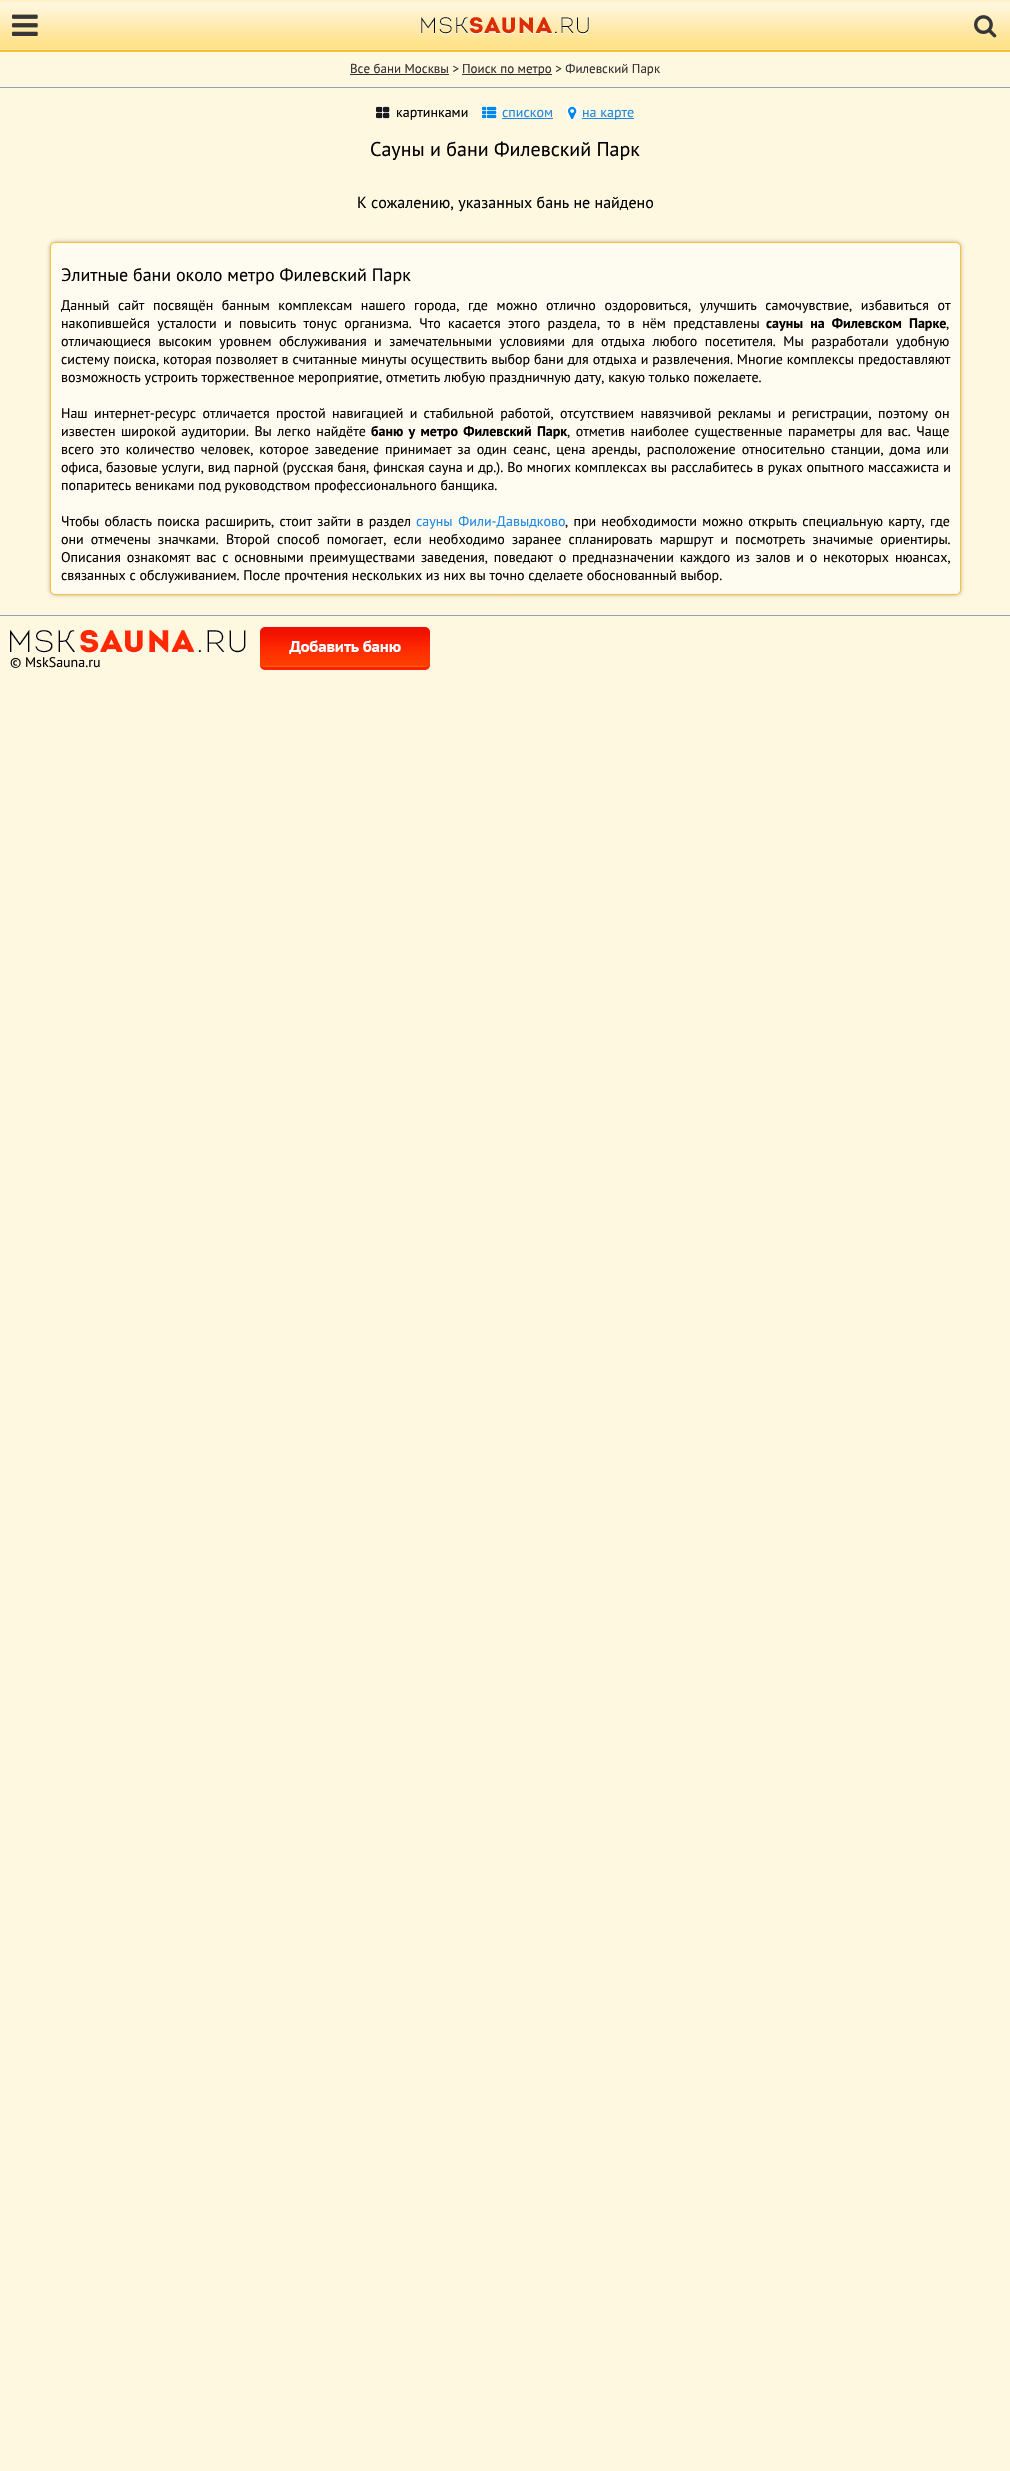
void draw(SkCanvas* canvas) {
	SkPaint paint;
	paint.setAntiAlias(true);
	auto spacedText = [&](const char* s, float x, float y, const SkFont& font, const SkPaint& ink, float letter, float word) {
		std::vector<SkGlyphID> glyphs(font.countText(s, strlen(s), SkTextEncoding::kUTF8));
		std::vector<float> xs(glyphs.size());
		font.textToGlyphs(s, strlen(s), SkTextEncoding::kUTF8, glyphs);
		font.getXPos(glyphs, xs, x);
		float extra = 0;
		for (size_t i = 0; i < glyphs.size(); i++) {
			xs[i] += extra;
			extra += letter + word * (glyphs[i] == font.unicharToGlyph(' '));
		}
		canvas->drawTextBlob(SkTextBlob::MakeFromPosHGlyphs(glyphs, xs, y, font), 0, 0, ink);
	};
	canvas->clear(0xfffff8e1);
	paint.setColor(0xffffffff);
	canvas->drawRect(SkRect::MakeXYWH(0, 49, 1010, 1), paint);
	canvas->drawImageRect(SkImages::DeferredFromEncodedData(SkData::MakeFromFileName("img1.png")), SkRect::MakeXYWH(0, 0, 1010, 50), SkSamplingOptions());
	paint.setColor(0xfffbc02d);
	canvas->drawRect(SkRect::MakeXYWH(0, 50, 1010, 2), paint);
	canvas->drawImageRect(SkImages::DeferredFromEncodedData(SkData::MakeFromFileName("img2.png")), SkRect::MakeXYWH(12, 14, 26, 22), SkSamplingOptions());
	canvas->drawImageRect(SkImages::DeferredFromEncodedData(SkData::MakeFromFileName("img3.png")), SkRect::MakeXYWH(421, 17, 168, 18), SkSamplingOptions());
	canvas->drawImageRect(SkImages::DeferredFromEncodedData(SkData::MakeFromFileName("img4.png")), SkRect::MakeXYWH(974, 15, 23, 23), SkSamplingOptions());
	paint.setColor(0xff90a4ae);
	canvas->drawRect(SkRect::MakeXYWH(0, 87, 1010, 1), paint);
	SkFont f1(fontMgr->matchFamilyStyle("PT Sans", SkFontStyle::Normal()), 13);
	f1.setSubpixel(true);
	paint.setColor(0xff313131);
	canvas->drawString("Все бани Москвы >", 350, 73, f1, paint);
	canvas->drawRect(SkRect::MakeXYWH(350, 74, 99, 1), paint);
	canvas->drawRect(SkRect::MakeXYWH(462, 74, 90, 1), paint);
	canvas->drawString("Поиск по метро > Филевский Парк", 462, 73, f1, paint);
	canvas->drawImageRect(SkImages::DeferredFromEncodedData(SkData::MakeFromFileName("img5.png")), SkRect::MakeXYWH(376, 106, 14, 13), SkSamplingOptions());
	SkFont f2(fontMgr->matchFamilyStyle("PT Sans", SkFontStyle::Normal()), 14);
	f2.setSubpixel(true);
	paint.setColor(0xff000000);
	canvas->drawString("картинками", 396, 117, f2, paint);
	canvas->drawImageRect(SkImages::DeferredFromEncodedData(SkData::MakeFromFileName("img6.png")), SkRect::MakeXYWH(482, 106, 15, 13), SkSamplingOptions());
	paint.setColor(0xff1e88e5);
	canvas->drawString("списком", 502, 117, f2, paint);
	canvas->drawRect(SkRect::MakeXYWH(502, 118, 51, 1), paint);
	canvas->drawImageRect(SkImages::DeferredFromEncodedData(SkData::MakeFromFileName("img7.png")), SkRect::MakeXYWH(567, 106, 12, 13), SkSamplingOptions());
	canvas->drawRect(SkRect::MakeXYWH(582, 118, 52, 1), paint);
	canvas->drawString("на карте", 582, 117, f2, paint);
	SkFont f3(fontMgr->matchFamilyStyle("PT Sans", SkFontStyle::Normal()), 20);
	f3.setSubpixel(true);
	paint.setColor(0xff000000);
	canvas->drawString("Сауны и бани Филевский Парк", 370, 156, f3, paint);
	SkFont f4(fontMgr->matchFamilyStyle("PT Sans", SkFontStyle::Normal()), 16);
	f4.setSubpixel(true);
	canvas->drawString("К сожалению, указанных бань не найдено", 357, 208, f4, paint);
	paint.setColor(0x59323232);
	paint.setMaskFilter(SkMaskFilter::MakeBlur(kNormal_SkBlurStyle, 2));
	canvas->drawRoundRect(SkRect::MakeXYWH(50, 242, 911, 353), 5, 5, paint);
	paint.setMaskFilter(nullptr);
	paint.setColor(0xfffefbf0);
	canvas->drawRoundRect(SkRect::MakeXYWH(50.5, 242.5, 910, 352), 4.5, 4.5, paint);
	paint.setStroke(true);
	paint.setStrokeWidth(1);
	paint.setColor(0xfffbc02d);
	canvas->drawRoundRect(SkRect::MakeXYWH(50.5, 242.5, 910, 352), 4.5, 4.5, paint);
	SkFont f5(fontMgr->matchFamilyStyle("PT Sans", SkFontStyle::Normal()), 18);
	f5.setSubpixel(true);
	paint.setStroke(false);
	paint.setColor(0xff000000);
	canvas->drawString("Элитные бани около метро Филевский Парк", 61, 281, f5, paint);
	spacedText("Данный сайт посвящён банным комплексам нашего города, где можно отлично оздоровиться, улучшить самочувствие, избавиться от", 61, 310, f2, paint, 0, 4.9);
	spacedText("накопившейся усталости и повысить тонус организма. Что касается этого раздела, то в нём представлены", 61, 328, f2, paint, 0, 3.6);
	SkFont f6(fontMgr->matchFamilyStyle("PT Sans", SkFontStyle::Bold()), 14);
	f6.setSubpixel(true);
	spacedText("сауны на Филевском Парке", 766, 328, f6, paint, 0, 3.6);
	canvas->drawString(",", 946, 328, f2, paint);
	spacedText("отличающиеся высоким уровнем обслуживания и замечательными условиями для отдыха любого посетителя. Мы разработали удобную", 61, 346, f2, paint, 0, 3.75);
	spacedText("систему поиска, которая позволяет в считанные минуты осуществить выбор бани для отдыха и развлечения. Многие комплексы предоставляют", 61, 364, f2, paint, 0, 0.2);
	canvas->drawString("возможность устроить торжественное мероприятие, отметить любую праздничную дату, какую только пожелаете.", 61, 382, f2, paint);
	spacedText("Наш интернет-ресурс отличается простой навигацией и стабильной работой, отсутствием навязчивой рекламы и регистрации, поэтому он", 61, 418, f2, paint, 0, 2.6);
	spacedText("известен широкой аудитории. Вы легко найдёте", 61, 436, f2, paint, 0, 1.75);
	spacedText("баню у метро Филевский Парк", 371, 436, f6, paint, 0, 1.75);
	spacedText(", отметив наиболее существенные параметры для вас. Чаще", 567, 436, f2, paint, 0, 1.75);
	spacedText("всего это количество человек, которое заведение принимает за один сеанс, цена аренды, расположение относительно станции, дома или", 61, 454, f2, paint, 0, 2.25);
	spacedText("офиса, базовые услуги, вид парной (русская баня, финская сауна и др.). Во многих комплексах вы расслабитесь в руках опытного массажиста и", 61, 472, f2, paint, 0, 0.2);
	canvas->drawString("попаритесь вениками под руководством профессионального банщика.", 61, 490, f2, paint);
	spacedText("Чтобы область поиска расширить, стоит зайти в раздел", 61, 526, f2, paint, 0, 1.5);
	paint.setColor(0xff1e88e5);
	spacedText("сауны Фили-Давыдково", 416, 526, f2, paint, 0, 2);
	paint.setColor(0xff000000);
	spacedText(", при необходимости можно открыть специальную карту, где", 565, 526, f2, paint, 0, 1.5);
	spacedText("они отмечены значками. Второй способ помогает, если необходимо заранее спланировать маршрут и посмотреть значимые ориентиры.", 61, 544, f2, paint, 0, 3.4);
	spacedText("Описания ознакомят вас с основными преимуществами заведения, поведают о предназначении каждого из залов и о некоторых нюансах,", 61, 562, f2, paint, 0, 2.1);
	canvas->drawString("связанных с обслуживанием. После прочтения нескольких из них вы точно сделаете обоснованный выбор.", 61, 580, f2, paint);
	paint.setColor(0xff90a4ae);
	canvas->drawRect(SkRect::MakeXYWH(0, 615, 1010, 1), paint);
	canvas->drawImageRect(SkImages::DeferredFromEncodedData(SkData::MakeFromFileName("img8.png")), SkRect::MakeXYWH(10, 630, 236, 24), SkSamplingOptions());
	canvas->drawImageRect(SkImages::DeferredFromEncodedData(SkData::MakeFromFileName("img9.png")), SkRect::MakeXYWH(260, 627, 170, 43), SkSamplingOptions());
	paint.setColor(0xff000000);
	canvas->drawString("© MskSauna.ru", 10, 667, f2, paint);
}
